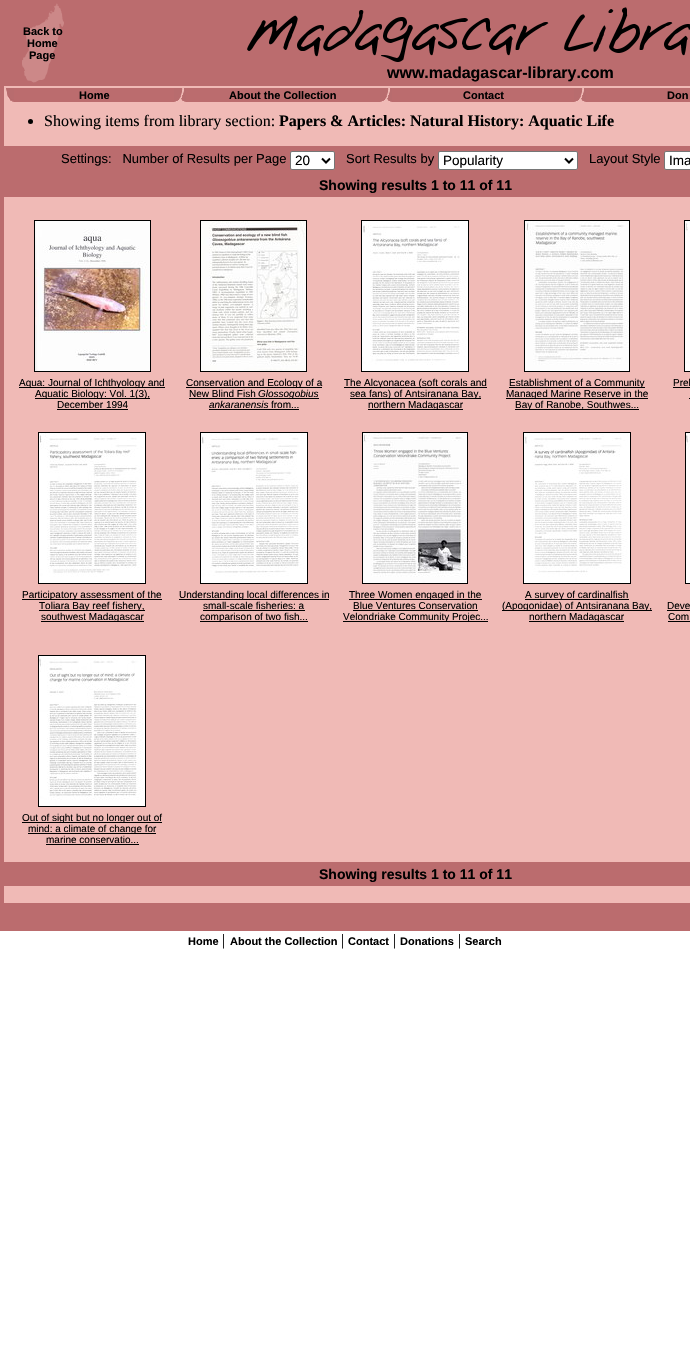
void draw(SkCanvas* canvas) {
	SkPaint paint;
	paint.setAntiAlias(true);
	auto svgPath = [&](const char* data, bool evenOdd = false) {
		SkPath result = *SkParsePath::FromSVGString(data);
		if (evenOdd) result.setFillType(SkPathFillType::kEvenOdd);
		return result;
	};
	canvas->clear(0xffffffff);
	paint.setColor(0xfff0bab6);
	canvas->drawRect(SkRect::MakeXYWH(4, 86, 686, 817), paint);
	paint.setColor(0xffbb6c6e);
	canvas->drawRect(SkRect::MakeXYWH(0, 0, 2, 931), paint);
	canvas->drawRect(SkRect::MakeXYWH(2, 0, 688, 86), paint);
	canvas->drawImageRect(SkImages::DeferredFromEncodedData(SkData::MakeFromFileName("img1.png")), SkRect::MakeXYWH(22, 3, 42, 80), SkSamplingOptions());
	SkFont f1(fontMgr->matchFamilyStyle("Liberation Sans", SkFontStyle::Bold()), 11);
	f1.setSubpixel(true);
	paint.setColor(0xff000000);
	canvas->drawString("Back to", 23, 35, f1, paint);
	canvas->drawString("Home", 27, 47, f1, paint);
	canvas->drawString("Page", 29, 59, f1, paint);
	canvas->drawImageRect(SkImages::DeferredFromEncodedData(SkData::MakeFromFileName("img2.png")), SkRect::MakeXYWH(247, 7, 443, 55), SkSamplingOptions());
	SkFont f2(fontMgr->matchFamilyStyle("Liberation Sans", SkFontStyle::Bold()), 16);
	f2.setSubpixel(true);
	canvas->drawString("www.madagascar-library.com", 387, 78, f2, paint);
	paint.setColor(0xffbb6c6e);
	canvas->drawRect(SkRect::MakeXYWH(2, 86, 2, 817), paint);
	canvas->drawImageRect(SkImages::DeferredFromEncodedData(SkData::MakeFromFileName("img3.png")), SkRect::MakeXYWH(6, 88, 8, 14), SkSamplingOptions());
	canvas->drawRect(SkRect::MakeXYWH(14, 88, 160, 14), paint);
	paint.setColor(0xff000000);
	canvas->drawString("Home", 79, 99, f1, paint);
	canvas->drawImageRect(SkImages::DeferredFromEncodedData(SkData::MakeFromFileName("img4.png")), SkRect::MakeXYWH(174, 88, 12, 14), SkSamplingOptions());
	paint.setColor(0xffbb6c6e);
	canvas->drawRect(SkRect::MakeXYWH(186, 88, 194, 14), paint);
	paint.setColor(0xff000000);
	canvas->drawString("About the Collection", 229, 99, f1, paint);
	canvas->drawImageRect(SkImages::DeferredFromEncodedData(SkData::MakeFromFileName("img4.png")), SkRect::MakeXYWH(380, 88, 12, 14), SkSamplingOptions());
	paint.setColor(0xffbb6c6e);
	canvas->drawRect(SkRect::MakeXYWH(392, 88, 182, 14), paint);
	paint.setColor(0xff000000);
	canvas->drawString("Contact", 463, 99, f1, paint);
	canvas->drawImageRect(SkImages::DeferredFromEncodedData(SkData::MakeFromFileName("img4.png")), SkRect::MakeXYWH(574, 88, 12, 14), SkSamplingOptions());
	paint.setColor(0xffbb6c6e);
	canvas->drawRect(SkRect::MakeXYWH(586, 88, 104, 14), paint);
	paint.setColor(0xff000000);
	canvas->drawString("Don", 667, 99, f1, paint);
	canvas->drawCircle(30.5, 121.5, 2.5, paint);
	SkFont f3(fontMgr->matchFamilyStyle("Liberation Serif", SkFontStyle::Normal()), 16);
	f3.setSubpixel(true);
	canvas->drawString("Showing items from library section:", 44, 126, f3, paint);
	SkFont f4(fontMgr->matchFamilyStyle("Liberation Serif", SkFontStyle::Bold()), 16);
	f4.setSubpixel(true);
	canvas->drawString("Papers & Articles: Natural History: Aquatic Life", 279, 126, f4, paint);
	paint.setColor(0xffbb6c6e);
	canvas->drawRect(SkRect::MakeXYWH(4, 146, 686, 51), paint);
	SkFont f5(fontMgr->matchFamilyStyle("Liberation Sans", SkFontStyle::Normal()), 13);
	f5.setSubpixel(true);
	paint.setColor(0xff000000);
	canvas->drawString("Settings:   Number of Results per Page", 61, 163, f5, paint);
	paint.setColor(0xffffffff);
	canvas->drawRoundRect(SkRect::MakeXYWH(290.5, 151.5, 44, 18), 1.5, 1.5, paint);
	paint.setStroke(true);
	paint.setStrokeWidth(1);
	paint.setColor(0xff767676);
	canvas->drawRoundRect(SkRect::MakeXYWH(290.5, 151.5, 44, 18), 1.5, 1.5, paint);
	paint.setStrokeWidth(2);
	paint.setColor(0xff000000);
	canvas->drawPath(svgPath("M322 158.5L326 162.5L330 158.5"), paint);
	SkFont f6(fontMgr->matchFamilyStyle("Liberation Sans", SkFontStyle::Normal()), 13.5);
	f6.setSubpixel(true);
	paint.setStroke(false);
	canvas->drawString("20", 295, 165, f6, paint);
	canvas->drawString("Sort Results by", 346, 163, f5, paint);
	paint.setColor(0xffffffff);
	canvas->drawRoundRect(SkRect::MakeXYWH(438.5, 151.5, 139, 18), 1.5, 1.5, paint);
	paint.setStroke(true);
	paint.setStrokeWidth(1);
	paint.setColor(0xff767676);
	canvas->drawRoundRect(SkRect::MakeXYWH(438.5, 151.5, 139, 18), 1.5, 1.5, paint);
	paint.setStrokeWidth(2);
	paint.setColor(0xff000000);
	canvas->drawPath(svgPath("M565 158.5L569 162.5L573 158.5"), paint);
	paint.setStroke(false);
	canvas->drawString("Popularity", 443, 165, f6, paint);
	canvas->drawString("Layout Style", 589, 163, f5, paint);
	paint.setColor(0xffffffff);
	canvas->drawRoundRect(SkRect::MakeXYWH(664.5, 151.5, 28, 18), 1.5, 1.5, paint);
	paint.setStroke(true);
	paint.setStrokeWidth(1);
	paint.setColor(0xff767676);
	canvas->drawRoundRect(SkRect::MakeXYWH(664.5, 151.5, 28, 18), 1.5, 1.5, paint);
	paint.setStroke(false);
	paint.setColor(0xff000000);
	canvas->drawString("Ima", 669, 165, f6, paint);
	SkFont f7(fontMgr->matchFamilyStyle("Liberation Sans", SkFontStyle::Bold()), 14);
	f7.setSubpixel(true);
	canvas->drawString("Showing results 1 to 11 of 11", 319, 190, f7, paint);
	paint.setStroke(true);
	canvas->drawRect(SkRect::MakeXYWH(34.5, 220.5, 116, 151), paint);
	canvas->drawImageRect(SkImages::DeferredFromEncodedData(SkData::MakeFromFileName("img5.png")), SkRect::MakeXYWH(35, 221, 115, 150), SkSamplingOptions());
	paint.setStroke(false);
	canvas->drawRect(SkRect::MakeXYWH(19, 387, 146, 1), paint);
	SkFont f8(fontMgr->matchFamilyStyle("Liberation Sans", SkFontStyle::Normal()), 10);
	f8.setSubpixel(true);
	canvas->drawString("Aqua: Journal of Ichthyology and", 19, 386, f8, paint);
	canvas->drawRect(SkRect::MakeXYWH(35, 398, 115, 1), paint);
	canvas->drawString("Aquatic Biology: Vol. 1(3),", 35, 397, f8, paint);
	canvas->drawString("December 1994", 57, 408, f8, paint);
	canvas->drawRect(SkRect::MakeXYWH(57, 409, 71, 1), paint);
	paint.setStroke(true);
	canvas->drawRect(SkRect::MakeXYWH(200.5, 220.5, 106, 151), paint);
	canvas->drawImageRect(SkImages::DeferredFromEncodedData(SkData::MakeFromFileName("img6.png")), SkRect::MakeXYWH(201, 221, 105, 150), SkSamplingOptions());
	paint.setStroke(false);
	canvas->drawRect(SkRect::MakeXYWH(186, 387, 136, 1), paint);
	canvas->drawString("Conservation and Ecology of a", 186, 386, f8, paint);
	canvas->drawString("New Blind Fish", 189, 397, f8, paint);
	canvas->drawRect(SkRect::MakeXYWH(189, 398, 130, 1), paint);
	SkFont f9(fontMgr->matchFamilyStyle("Liberation Sans", SkFontStyle::Italic()), 10);
	f9.setSubpixel(true);
	canvas->drawString("Glossogobius", 258, 397, f9, paint);
	canvas->drawString("ankaranensis", 209, 408, f9, paint);
	canvas->drawRect(SkRect::MakeXYWH(209, 409, 90, 1), paint);
	canvas->drawString("from...", 271, 408, f8, paint);
	paint.setStroke(true);
	canvas->drawRect(SkRect::MakeXYWH(361.5, 220.5, 107, 151), paint);
	canvas->drawImageRect(SkImages::DeferredFromEncodedData(SkData::MakeFromFileName("img7.png")), SkRect::MakeXYWH(362, 221, 106, 150), SkSamplingOptions());
	paint.setStroke(false);
	canvas->drawRect(SkRect::MakeXYWH(344, 387, 143, 1), paint);
	canvas->drawString("The Alcyonacea (soft corals and", 344, 386, f8, paint);
	canvas->drawRect(SkRect::MakeXYWH(350, 398, 131, 1), paint);
	canvas->drawString("sea fans) of Antsiranana Bay,", 350, 397, f8, paint);
	canvas->drawRect(SkRect::MakeXYWH(368, 409, 95, 1), paint);
	canvas->drawString("northern Madagascar", 368, 408, f8, paint);
	paint.setStroke(true);
	canvas->drawRect(SkRect::MakeXYWH(524.5, 220.5, 105, 151), paint);
	canvas->drawImageRect(SkImages::DeferredFromEncodedData(SkData::MakeFromFileName("img8.png")), SkRect::MakeXYWH(525, 221, 104, 150), SkSamplingOptions());
	paint.setStroke(false);
	canvas->drawRect(SkRect::MakeXYWH(509, 387, 136, 1), paint);
	canvas->drawString("Establishment of a Community", 509, 386, f8, paint);
	canvas->drawRect(SkRect::MakeXYWH(506, 398, 142, 1), paint);
	canvas->drawString("Managed Marine Reserve in the", 506, 397, f8, paint);
	canvas->drawRect(SkRect::MakeXYWH(515, 409, 124, 1), paint);
	canvas->drawString("Bay of Ranobe, Southwes...", 515, 408, f8, paint);
	paint.setStroke(true);
	canvas->drawRect(SkRect::MakeXYWH(684.5, 220.5, 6, 151), paint);
	canvas->drawImageRect(SkImages::DeferredFromEncodedData(SkData::MakeFromFileName("img9.png")), SkRect::MakeXYWH(685, 221, 5, 150), SkSamplingOptions());
	paint.setStroke(false);
	canvas->drawString("Prel", 673, 386, f8, paint);
	canvas->drawRect(SkRect::MakeXYWH(673, 387, 17, 1), paint);
	canvas->drawRect(SkRect::MakeXYWH(689, 398, 1, 1), paint);
	paint.setStroke(true);
	canvas->drawRect(SkRect::MakeXYWH(38.5, 432.5, 107, 151), paint);
	canvas->drawImageRect(SkImages::DeferredFromEncodedData(SkData::MakeFromFileName("img10.png")), SkRect::MakeXYWH(39, 433, 106, 150), SkSamplingOptions());
	paint.setStroke(false);
	canvas->drawRect(SkRect::MakeXYWH(22, 599, 140, 1), paint);
	canvas->drawString("Participatory assessment of the", 22, 598, f8, paint);
	canvas->drawRect(SkRect::MakeXYWH(39, 610, 106, 1), paint);
	canvas->drawString("Toliara Bay reef fishery,", 39, 609, f8, paint);
	canvas->drawRect(SkRect::MakeXYWH(41, 621, 103, 1), paint);
	canvas->drawString("southwest Madagascar", 41, 620, f8, paint);
	paint.setStroke(true);
	canvas->drawRect(SkRect::MakeXYWH(200.5, 432.5, 107, 151), paint);
	canvas->drawImageRect(SkImages::DeferredFromEncodedData(SkData::MakeFromFileName("img11.png")), SkRect::MakeXYWH(201, 433, 106, 150), SkSamplingOptions());
	paint.setStroke(false);
	canvas->drawRect(SkRect::MakeXYWH(179, 599, 150, 1), paint);
	canvas->drawString("Understanding local differences in", 179, 598, f8, paint);
	canvas->drawString("small-scale fisheries: a", 203, 609, f8, paint);
	canvas->drawRect(SkRect::MakeXYWH(203, 610, 102, 1), paint);
	canvas->drawRect(SkRect::MakeXYWH(200, 621, 108, 1), paint);
	canvas->drawString("comparison of two fish...", 200, 620, f8, paint);
	paint.setStroke(true);
	canvas->drawRect(SkRect::MakeXYWH(362.5, 432.5, 105, 151), paint);
	canvas->drawImageRect(SkImages::DeferredFromEncodedData(SkData::MakeFromFileName("img12.png")), SkRect::MakeXYWH(363, 433, 104, 150), SkSamplingOptions());
	paint.setStroke(false);
	canvas->drawRect(SkRect::MakeXYWH(349, 599, 133, 1), paint);
	canvas->drawString("Three Women engaged in the", 349, 598, f8, paint);
	canvas->drawString("Blue Ventures Conservation", 353, 609, f8, paint);
	canvas->drawRect(SkRect::MakeXYWH(353, 610, 125, 1), paint);
	canvas->drawRect(SkRect::MakeXYWH(343, 621, 145, 1), paint);
	canvas->drawString("Velondriake Community Projec...", 343, 620, f8, paint);
	paint.setStroke(true);
	canvas->drawRect(SkRect::MakeXYWH(523.5, 432.5, 107, 151), paint);
	canvas->drawImageRect(SkImages::DeferredFromEncodedData(SkData::MakeFromFileName("img13.png")), SkRect::MakeXYWH(524, 433, 106, 150), SkSamplingOptions());
	paint.setStroke(false);
	canvas->drawRect(SkRect::MakeXYWH(525, 599, 104, 1), paint);
	canvas->drawString("A survey of cardinalfish", 525, 598, f8, paint);
	canvas->drawRect(SkRect::MakeXYWH(502, 610, 150, 1), paint);
	canvas->drawString("(Apogonidae) of Antsiranana Bay,", 502, 609, f8, paint);
	canvas->drawRect(SkRect::MakeXYWH(529, 621, 95, 1), paint);
	canvas->drawString("northern Madagascar", 529, 620, f8, paint);
	paint.setStroke(true);
	canvas->drawRect(SkRect::MakeXYWH(685.5, 432.5, 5, 151), paint);
	canvas->drawImageRect(SkImages::DeferredFromEncodedData(SkData::MakeFromFileName("img14.png")), SkRect::MakeXYWH(686, 433, 4, 150), SkSamplingOptions());
	paint.setStroke(false);
	canvas->drawString("Deve", 667, 609, f8, paint);
	canvas->drawRect(SkRect::MakeXYWH(667, 610, 23, 1), paint);
	canvas->drawString("Com", 668, 620, f8, paint);
	canvas->drawRect(SkRect::MakeXYWH(668, 621, 22, 1), paint);
	paint.setStroke(true);
	canvas->drawRect(SkRect::MakeXYWH(38.5, 655.5, 107, 151), paint);
	canvas->drawImageRect(SkImages::DeferredFromEncodedData(SkData::MakeFromFileName("img15.png")), SkRect::MakeXYWH(39, 656, 106, 150), SkSamplingOptions());
	paint.setStroke(false);
	canvas->drawRect(SkRect::MakeXYWH(22, 822, 140, 1), paint);
	canvas->drawString("Out of sight but no longer out of", 22, 821, f8, paint);
	canvas->drawRect(SkRect::MakeXYWH(28, 833, 128, 1), paint);
	canvas->drawString("mind: a climate of change for", 28, 832, f8, paint);
	canvas->drawString("marine conservatio...", 46, 843, f8, paint);
	canvas->drawRect(SkRect::MakeXYWH(46, 844, 93, 1), paint);
	paint.setColor(0xffbb6c6e);
	canvas->drawRect(SkRect::MakeXYWH(4, 862, 686, 24), paint);
	paint.setColor(0xff000000);
	canvas->drawString("Showing results 1 to 11 of 11", 319, 879, f7, paint);
	paint.setColor(0xffbb6c6e);
	canvas->drawRect(SkRect::MakeXYWH(2, 903, 688, 28), paint);
	paint.setColor(0xff000000);
	canvas->drawString("Home", 188, 945, f1, paint);
	canvas->drawString("|", 222, 945, f3, paint);
	canvas->drawString("About the Collection", 230, 945, f1, paint);
	canvas->drawString("|", 341, 945, f3, paint);
	canvas->drawString("Contact", 348, 945, f1, paint);
	canvas->drawString("|", 393, 945, f3, paint);
	canvas->drawString("Donations", 400, 945, f1, paint);
	canvas->drawString("|", 458, 945, f3, paint);
	canvas->drawString("Search", 465, 945, f1, paint);
}
